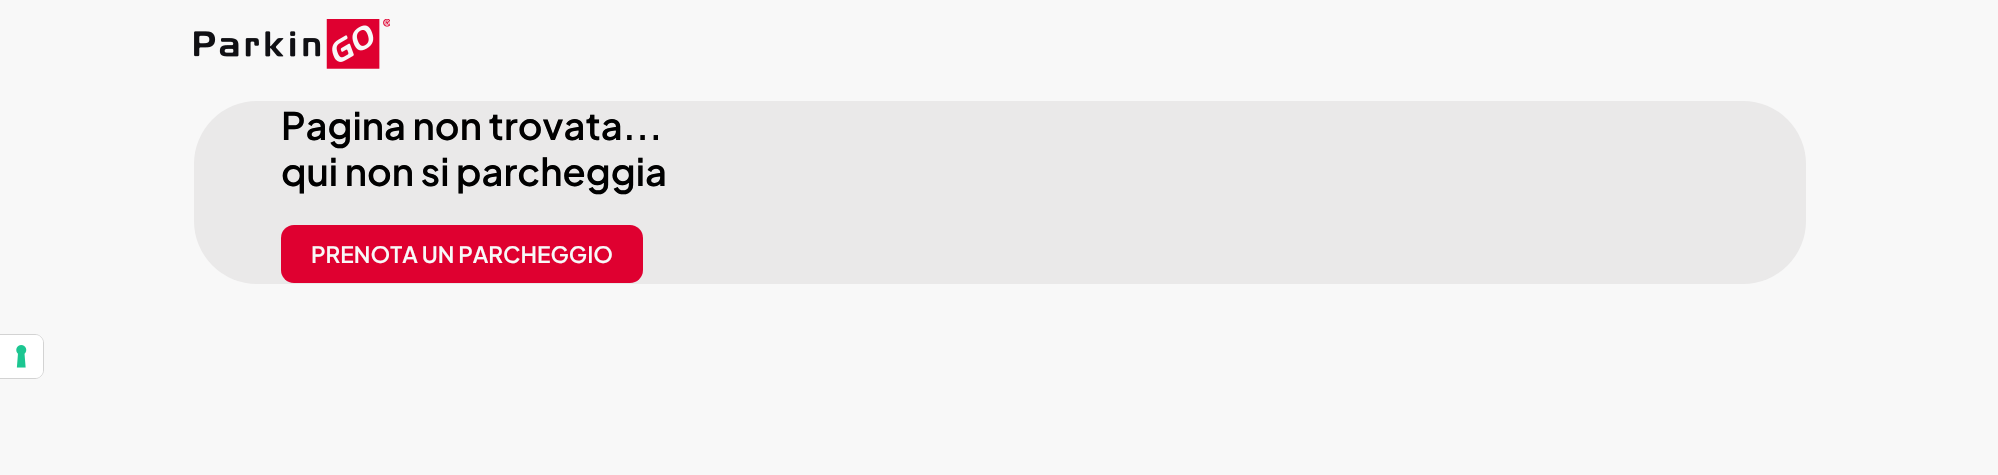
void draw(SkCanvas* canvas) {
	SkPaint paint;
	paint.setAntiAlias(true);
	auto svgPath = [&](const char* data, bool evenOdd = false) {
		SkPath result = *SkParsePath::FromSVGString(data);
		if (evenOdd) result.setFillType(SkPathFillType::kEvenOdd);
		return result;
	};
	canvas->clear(0xfff8f8f8);
	canvas->drawImageRect(SkImages::DeferredFromEncodedData(SkData::MakeFromFileName("img1.png")), SkRect::MakeXYWH(194, 19, 196, 50), SkSamplingOptions());
	paint.setColor(0xffeae9e9);
	canvas->drawRoundRect(SkRect::MakeXYWH(194, 101, 1612, 183), 63, 63, paint);
	SkFont f1(fontMgr->matchFamilyStyle("Plus Jakarta Sans", SkFontStyle(600, SkFontStyle::kNormal_Width, SkFontStyle::kUpright_Slant)), 38);
	f1.setSubpixel(true);
	paint.setColor(0xff000000);
	canvas->drawString("Pagina non trovata...", 281, 140, f1, paint);
	canvas->drawString("qui non si parcheggia", 281, 186, f1, paint);
	paint.setColor(0xffdf0030);
	canvas->drawRoundRect(SkRect::MakeXYWH(281, 225, 362, 58), 13, 13, paint);
	SkFont f2(fontMgr->matchFamilyStyle("Plus Jakarta Sans", SkFontStyle(600, SkFontStyle::kNormal_Width, SkFontStyle::kUpright_Slant)), 22.5);
	f2.setSubpixel(true);
	paint.setColor(0xfff8f8f8);
	canvas->drawString("PRENOTA UN PARCHEGGIO", 311, 263, f2, paint);
	paint.setStroke(true);
	paint.setStrokeWidth(1);
	paint.setColor(0xffd3d3d3);
	canvas->drawPath(svgPath("M-.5 334.5H35C39.5 334.5 43.5 338.5 43.5 343V370C43.5 374.5 39.5 378.5 35 378.5H-.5Z"), paint);
	paint.setStroke(false);
	paint.setColor(0xffffffff);
	canvas->drawPath(svgPath("M0 335H35C39.5 335 43 338.5 43 343V370C43 374.5 39.5 378 35 378H0Z"), paint);
	canvas->drawImageRect(SkImages::DeferredFromEncodedData(SkData::MakeFromFileName("img2.png")), SkRect::MakeXYWH(16, 345, 11, 23), SkSamplingOptions());
}
